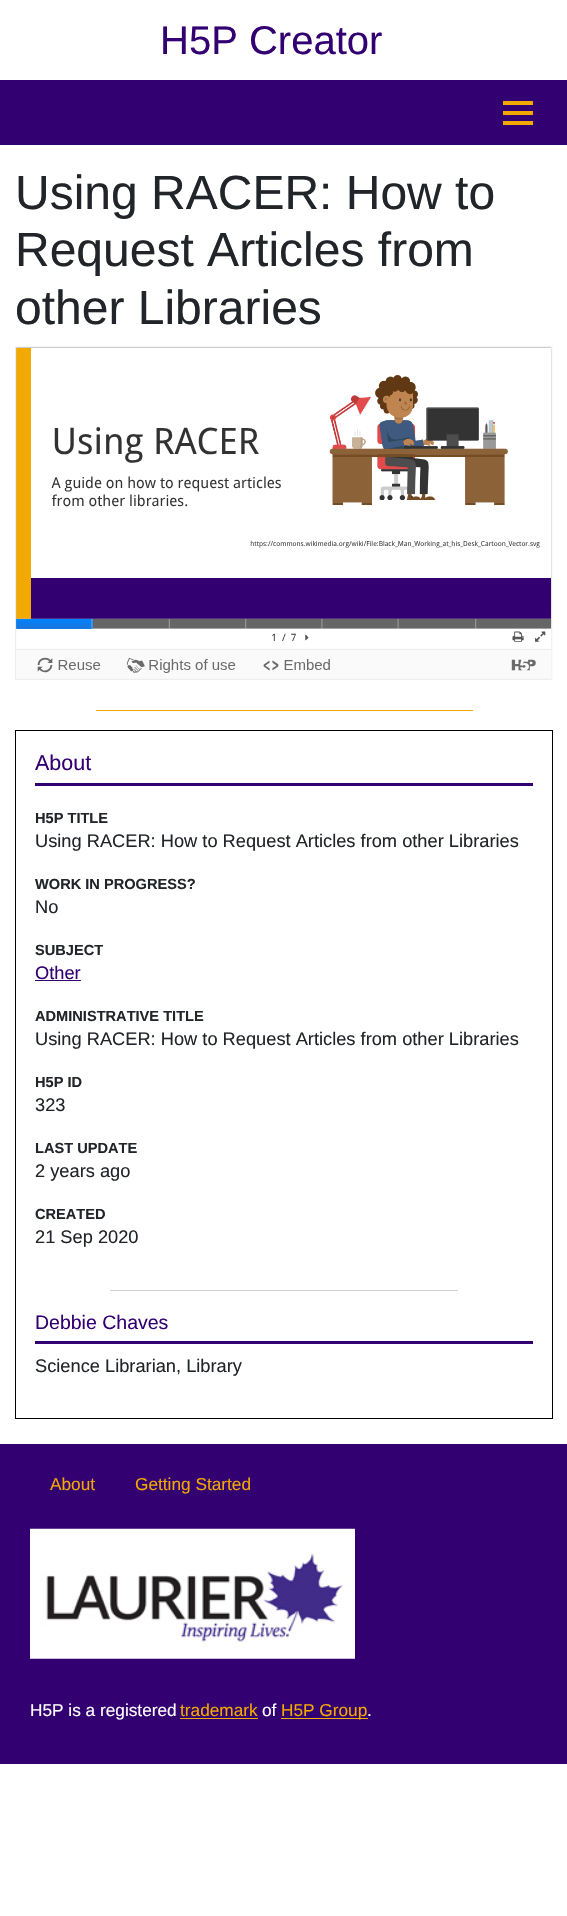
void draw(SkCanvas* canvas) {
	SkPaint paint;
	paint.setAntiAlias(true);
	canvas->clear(0xffffffff);
	SkFont f1(fontMgr->matchFamilyStyle("Liberation Sans", SkFontStyle::Normal()), 40);
	f1.setSubpixel(true);
	paint.setColor(0xff330072);
	canvas->drawString("H5P Creator", 160, 54, f1, paint);
	canvas->drawRect(SkRect::MakeXYWH(0, 80, 567, 65), paint);
	paint.setColor(0xfff2a900);
	canvas->drawRect(SkRect::MakeXYWH(503, 111, 30, 4), paint);
	canvas->drawRect(SkRect::MakeXYWH(503, 101, 30, 4), paint);
	canvas->drawRect(SkRect::MakeXYWH(503, 121, 30, 4), paint);
	SkFont f2(fontMgr->matchFamilyStyle("Liberation Sans", SkFontStyle::Normal()), 48);
	f2.setSubpixel(true);
	paint.setColor(0xff212529);
	canvas->drawString("Using RACER: How to", 15, 209, f2, paint);
	canvas->drawString("Request Articles from", 15, 266, f2, paint);
	canvas->drawString("other Libraries", 15, 324, f2, paint);
	canvas->drawImageRect(SkImages::DeferredFromEncodedData(SkData::MakeFromFileName("img1.png")), SkRect::MakeXYWH(15, 346, 538, 334), SkSamplingOptions());
	paint.setColor(0xfff2a900);
	canvas->drawRect(SkRect::MakeXYWH(96, 710, 377, 1), paint);
	paint.setStroke(true);
	paint.setStrokeWidth(1);
	paint.setColor(0xff000000);
	canvas->drawRect(SkRect::MakeXYWH(15.5, 730.5, 537, 688), paint);
	paint.setStroke(false);
	paint.setColor(0xff330072);
	canvas->drawRect(SkRect::MakeXYWH(35, 783, 498, 3), paint);
	SkFont f3(fontMgr->matchFamilyStyle("Liberation Sans", SkFontStyle::Normal()), 21.5);
	f3.setSubpixel(true);
	canvas->drawString("About", 35, 770, f3, paint);
	SkFont f4(fontMgr->matchFamilyStyle("Liberation Sans", SkFontStyle::Bold()), 14.6);
	f4.setSubpixel(true);
	paint.setColor(0xff212529);
	canvas->drawString("H5P TITLE", 35, 823, f4, paint);
	SkFont f5(fontMgr->matchFamilyStyle("Liberation Sans", SkFontStyle::Normal()), 18.25);
	f5.setSubpixel(true);
	canvas->drawString("Using RACER: How to Request Articles from other Libraries", 35, 847, f5, paint);
	canvas->drawString("WORK IN PROGRESS?", 35, 889, f4, paint);
	canvas->drawString("No", 35, 913, f5, paint);
	canvas->drawString("SUBJECT", 35, 955, f4, paint);
	paint.setColor(0xff330072);
	canvas->drawString("Other", 35, 979, f5, paint);
	canvas->drawRect(SkRect::MakeXYWH(35, 980, 46, 1), paint);
	paint.setColor(0xff212529);
	canvas->drawString("ADMINISTRATIVE TITLE", 35, 1021, f4, paint);
	canvas->drawString("Using RACER: How to Request Articles from other Libraries", 35, 1045, f5, paint);
	canvas->drawString("H5P ID", 35, 1087, f4, paint);
	canvas->drawString("323", 35, 1111, f5, paint);
	canvas->drawString("LAST UPDATE", 35, 1153, f4, paint);
	canvas->drawString("2 years ago", 35, 1177, f5, paint);
	canvas->drawString("CREATED", 35, 1219, f4, paint);
	canvas->drawString("21 Sep 2020", 35, 1243, f5, paint);
	paint.setColor(0xffd3d3d3);
	canvas->drawRect(SkRect::MakeXYWH(110, 1290, 348, 1), paint);
	paint.setColor(0xff330072);
	canvas->drawRect(SkRect::MakeXYWH(35, 1341, 498, 3), paint);
	SkFont f6(fontMgr->matchFamilyStyle("Liberation Sans", SkFontStyle::Normal()), 19.5);
	f6.setSubpixel(true);
	canvas->drawString("Debbie Chaves", 35, 1329, f6, paint);
	paint.setColor(0xff212529);
	canvas->drawString("Science Librarian, Library", 35, 1372, f5, paint);
	paint.setColor(0xff330072);
	canvas->drawRect(SkRect::MakeXYWH(0, 1444, 567, 320), paint);
	SkFont f7(fontMgr->matchFamilyStyle("Liberation Sans", SkFontStyle::Normal()), 17.25);
	f7.setSubpixel(true);
	paint.setColor(0xfff2a900);
	canvas->drawString("About", 50, 1490, f7, paint);
	canvas->drawString("Getting Started", 135, 1490, f7, paint);
	canvas->drawImageRect(SkImages::DeferredFromEncodedData(SkData::MakeFromFileName("img2.png")), SkRect::MakeXYWH(30, 1528, 325, 131), SkSamplingOptions());
	paint.setColor(0xffffffff);
	canvas->drawString("H5P is a registered", 30, 1716, f7, paint);
	paint.setColor(0xfff2a900);
	canvas->drawString("trademark", 180, 1716, f7, paint);
	canvas->drawRect(SkRect::MakeXYWH(180, 1718, 78, 1), paint);
	paint.setColor(0xffffffff);
	canvas->drawString("of", 262, 1716, f7, paint);
	paint.setColor(0xfff2a900);
	canvas->drawRect(SkRect::MakeXYWH(281, 1718, 87, 1), paint);
	canvas->drawString("H5P Group", 281, 1716, f7, paint);
	paint.setColor(0xffffffff);
	canvas->drawString(".", 367, 1716, f7, paint);
}
